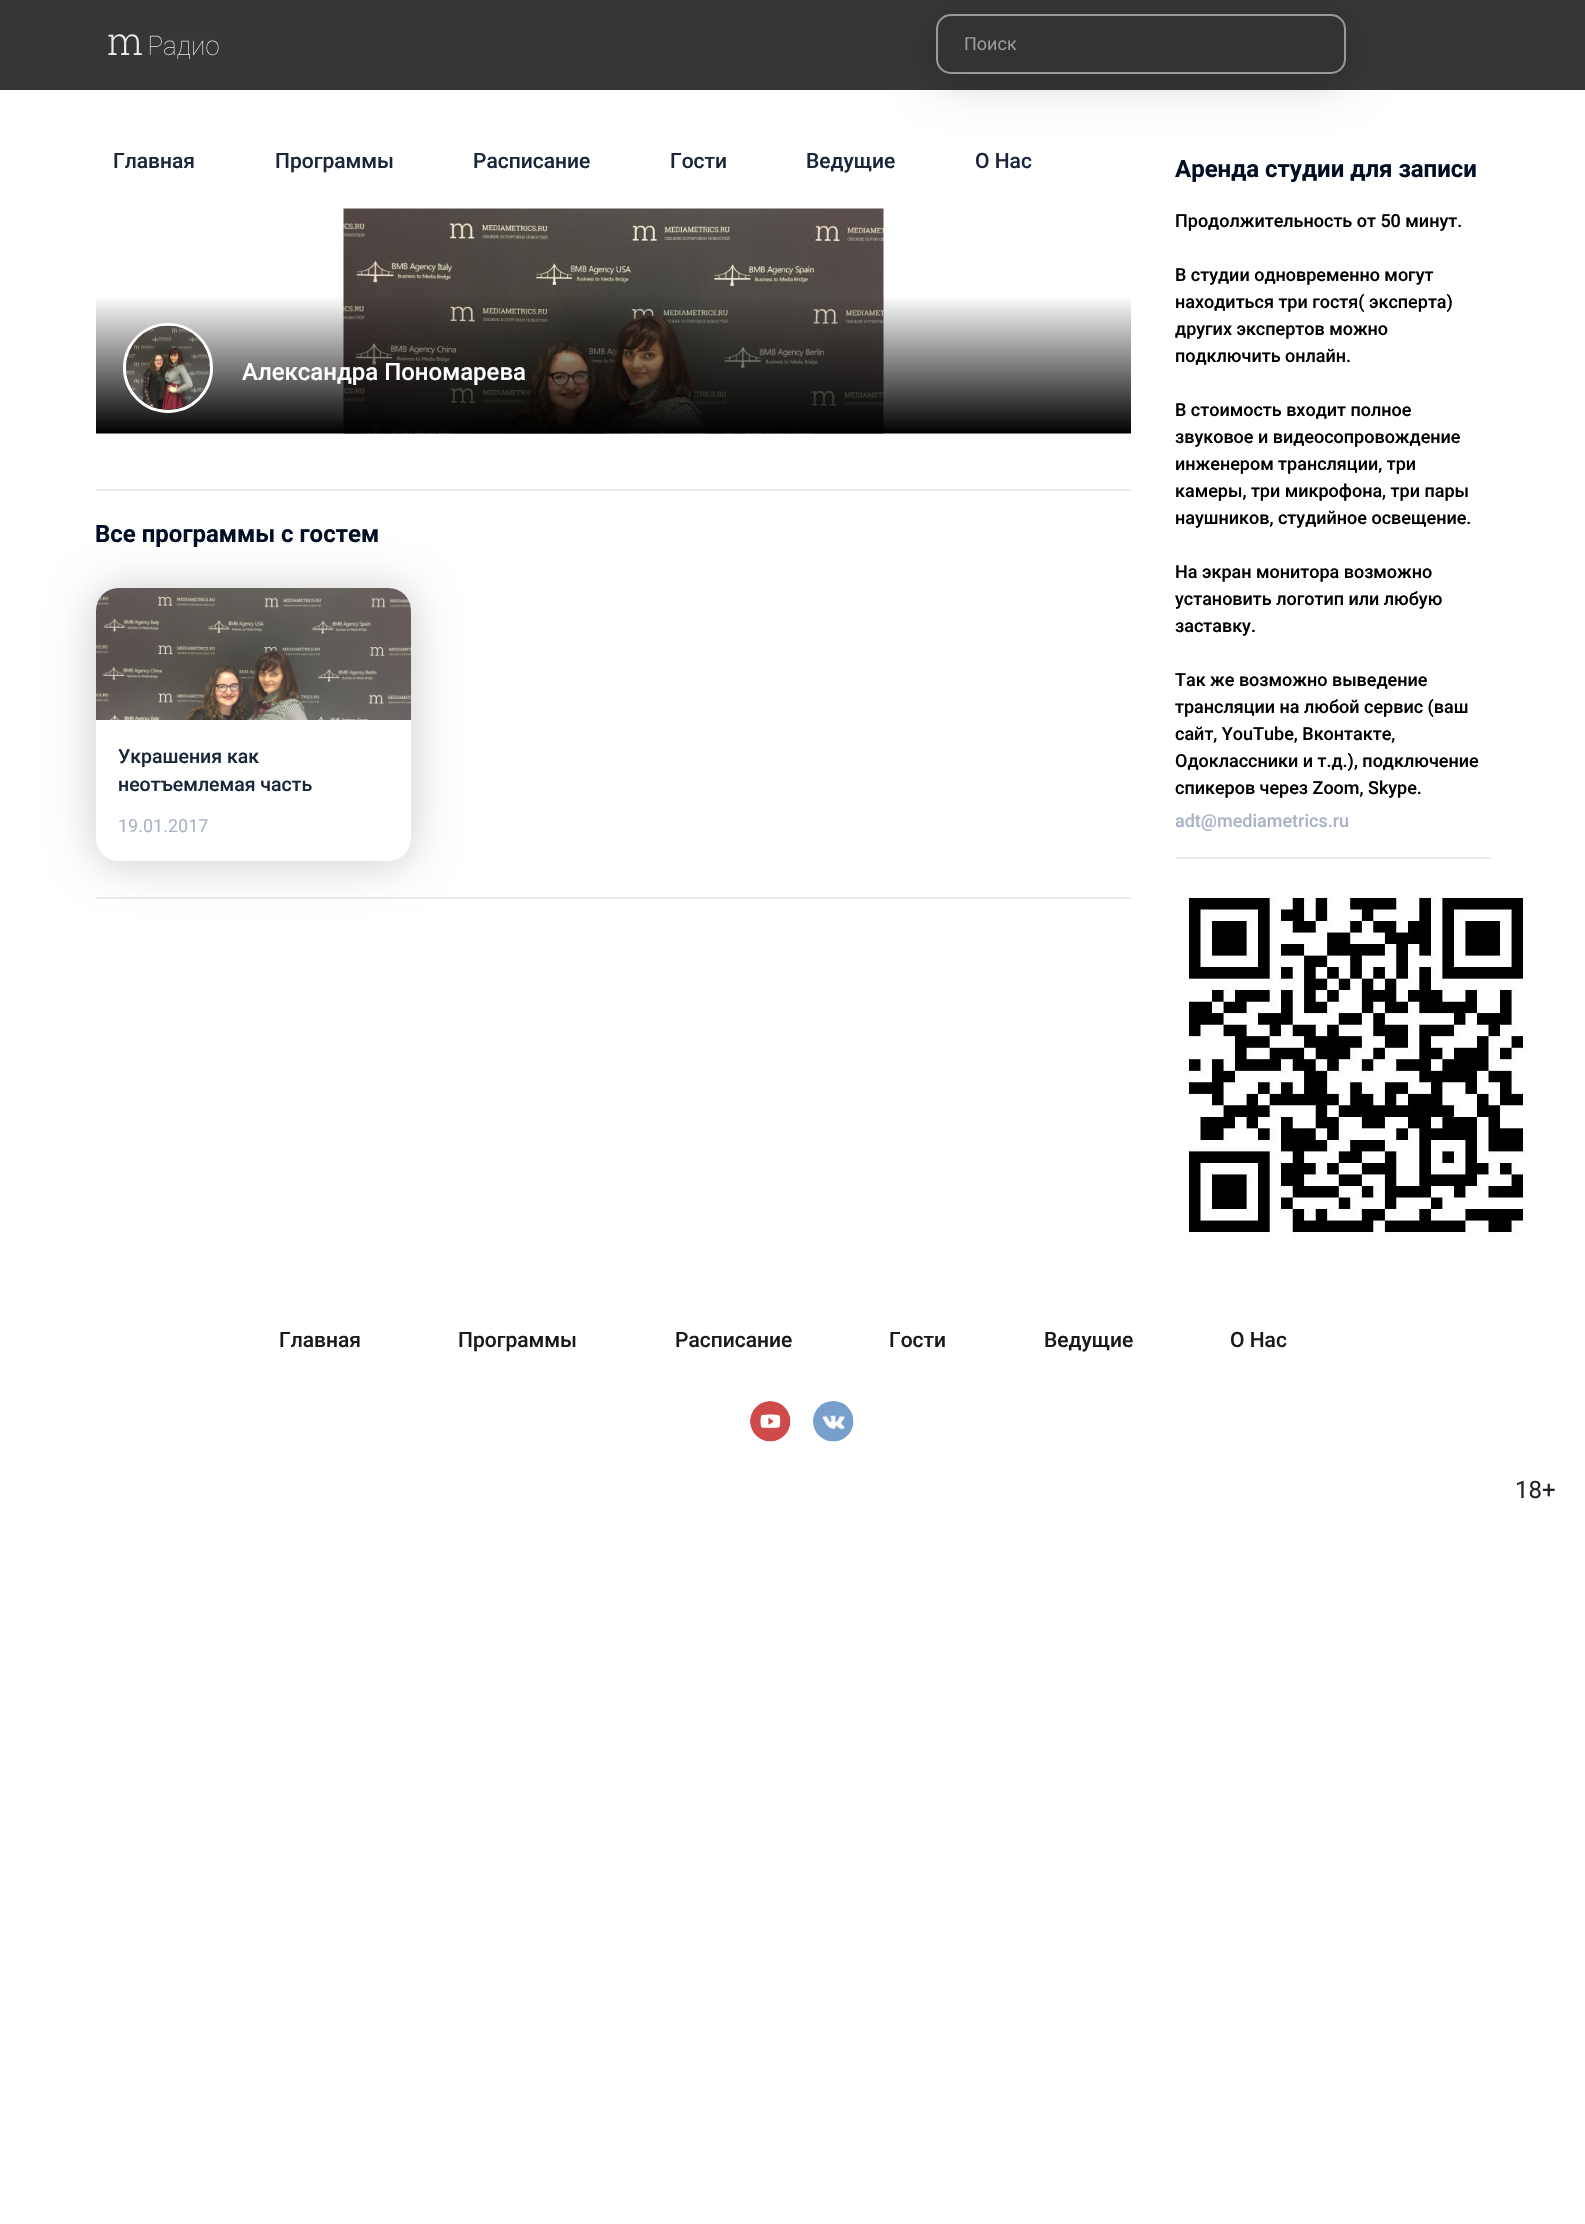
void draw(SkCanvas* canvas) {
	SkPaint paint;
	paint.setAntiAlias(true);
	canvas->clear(0xffffffff);
	paint.setColor(0xff353735);
	canvas->drawRect(SkRect::MakeXYWH(0, 0, 1585, 90), paint);
	canvas->drawImageRect(SkImages::DeferredFromEncodedData(SkData::MakeFromFileName("img1.png")), SkRect::MakeXYWH(108, 34, 111, 25), SkSamplingOptions());
	paint.setColor(0x33000000);
	paint.setMaskFilter(SkMaskFilter::MakeBlur(kNormal_SkBlurStyle, 22.5));
	canvas->drawRoundRect(SkRect::MakeXYWH(936, 21, 410, 60), 15, 15, paint);
	paint.setMaskFilter(nullptr);
	paint.setColor(0xff323431);
	canvas->drawRoundRect(SkRect::MakeXYWH(937, 15, 408, 58), 14, 14, paint);
	paint.setStroke(true);
	paint.setStrokeWidth(2);
	paint.setColor(0xff999a98);
	canvas->drawRoundRect(SkRect::MakeXYWH(937, 15, 408, 58), 14, 14, paint);
	SkFont f1(fontMgr->matchFamilyStyle("Roboto", SkFontStyle::Normal()), 18);
	f1.setSubpixel(true);
	paint.setStroke(false);
	canvas->drawString("Поиск", 964, 50, f1, paint);
	SkFont f2(fontMgr->matchFamilyStyle("Roboto", SkFontStyle(500, SkFontStyle::kNormal_Width, SkFontStyle::kUpright_Slant)), 21);
	f2.setSubpixel(true);
	paint.setColor(0xff1a2639);
	canvas->drawString("Главная", 113, 168, f2, paint);
	canvas->drawString("Программы", 275, 168, f2, paint);
	canvas->drawString("Расписание", 473, 168, f2, paint);
	canvas->drawString("Гости", 670, 168, f2, paint);
	canvas->drawString("Ведущие", 806, 168, f2, paint);
	canvas->drawString("О Нас", 975, 168, f2, paint);
	paint.setColor(0xffe9ebf0);
	canvas->drawRect(SkRect::MakeXYWH(96, 489, 1035, 2), paint);
	canvas->drawImageRect(SkImages::DeferredFromEncodedData(SkData::MakeFromFileName("img2.png")), SkRect::MakeXYWH(96, 208, 1035, 226), SkSamplingOptions());
	paint.setStroke(true);
	paint.setStrokeWidth(3);
	paint.setColor(0xffffffff);
	canvas->drawCircle(168, 368, 43.5, paint);
	canvas->drawImageRect(SkImages::DeferredFromEncodedData(SkData::MakeFromFileName("img3.png")), SkRect::MakeXYWH(126, 325, 84, 85), SkSamplingOptions());
	SkFont f3(fontMgr->matchFamilyStyle("Roboto", SkFontStyle(500, SkFontStyle::kNormal_Width, SkFontStyle::kUpright_Slant)), 24);
	f3.setSubpixel(true);
	paint.setStroke(false);
	canvas->drawString("Александра Пономарева", 242, 380, f3, paint);
	paint.setColor(0xffe9ebf0);
	canvas->drawRect(SkRect::MakeXYWH(96, 897, 1035, 2), paint);
	SkFont f4(fontMgr->matchFamilyStyle("Roboto", SkFontStyle::Bold()), 24);
	f4.setSubpixel(true);
	paint.setColor(0xff010e23);
	canvas->drawString("Все программы с гостем", 95, 542, f4, paint);
	paint.setColor(0x33000000);
	paint.setMaskFilter(SkMaskFilter::MakeBlur(kNormal_SkBlurStyle, 22.5));
	canvas->drawRoundRect(SkRect::MakeXYWH(96, 590, 315, 273), 23, 23, paint);
	paint.setMaskFilter(nullptr);
	paint.setColor(0xffffffff);
	canvas->drawRoundRect(SkRect::MakeXYWH(96, 588, 315, 273), 23, 23, paint);
	canvas->drawImageRect(SkImages::DeferredFromEncodedData(SkData::MakeFromFileName("img4.png")), SkRect::MakeXYWH(96, 588, 315, 132), SkSamplingOptions());
	SkFont f5(fontMgr->matchFamilyStyle("Roboto", SkFontStyle(500, SkFontStyle::kNormal_Width, SkFontStyle::kUpright_Slant)), 19.5);
	f5.setSubpixel(true);
	paint.setColor(0xff1a2639);
	canvas->drawString("Украшения как", 118, 763, f5, paint);
	canvas->drawString("неотъемлемая часть", 118, 791, f5, paint);
	paint.setColor(0xffaab3c6);
	canvas->drawString("19.01.2017", 118, 832, f1, paint);
	paint.setColor(0xff010e23);
	canvas->drawString("Аренда студии для записи", 1175, 177, f4, paint);
	paint.setColor(0xffe9ebf0);
	canvas->drawRect(SkRect::MakeXYWH(1176, 857, 315, 2), paint);
	SkFont f6(fontMgr->matchFamilyStyle("Roboto", SkFontStyle(500, SkFontStyle::kNormal_Width, SkFontStyle::kUpright_Slant)), 18);
	f6.setSubpixel(true);
	paint.setColor(0xff000000);
	canvas->drawString("Продолжительность от 50 минут.", 1175, 227, f6, paint);
	canvas->drawString("В студии одновременно могут", 1175, 281, f6, paint);
	canvas->drawString("находиться три гостя( эксперта)", 1175, 308, f6, paint);
	canvas->drawString("других экспертов можно", 1175, 335, f6, paint);
	canvas->drawString("подключить онлайн.", 1175, 362, f6, paint);
	canvas->drawString("В стоимость входит полное", 1175, 416, f6, paint);
	canvas->drawString("звуковое и видеосопровождение", 1175, 443, f6, paint);
	canvas->drawString("инженером трансляции, три", 1175, 470, f6, paint);
	canvas->drawString("камеры, три микрофона, три пары", 1175, 497, f6, paint);
	canvas->drawString("наушников, студийное освещение.", 1175, 524, f6, paint);
	canvas->drawString("На экран монитора возможно", 1175, 578, f6, paint);
	canvas->drawString("установить логотип или любую", 1175, 605, f6, paint);
	canvas->drawString("заставку.", 1175, 632, f6, paint);
	canvas->drawString("Так же возможно выведение", 1175, 686, f6, paint);
	canvas->drawString("трансляции на любой сервис (ваш", 1175, 713, f6, paint);
	canvas->drawString("сайт, YouTube, Вконтакте,", 1175, 740, f6, paint);
	canvas->drawString("Одоклассники и т.д.), подключение", 1175, 767, f6, paint);
	canvas->drawString("спикеров через Zoom, Skype.", 1175, 794, f6, paint);
	paint.setColor(0xffaab3c6);
	canvas->drawString("adt@mediametrics.ru", 1175, 827, f6, paint);
	canvas->drawImageRect(SkImages::DeferredFromEncodedData(SkData::MakeFromFileName("img5.png")), SkRect::MakeXYWH(1188, 897, 339, 339), SkSamplingOptions());
	paint.setColor(0xff1a1a1a);
	canvas->drawString("Главная", 279, 1347, f2, paint);
	canvas->drawString("Программы", 458, 1347, f2, paint);
	canvas->drawString("Расписание", 675, 1347, f2, paint);
	canvas->drawString("Гости", 889, 1347, f2, paint);
	canvas->drawString("Ведущие", 1044, 1347, f2, paint);
	canvas->drawString("О Нас", 1230, 1347, f2, paint);
	canvas->drawImageRect(SkImages::DeferredFromEncodedData(SkData::MakeFromFileName("img6.png")), SkRect::MakeXYWH(750, 1401, 41, 41), SkSamplingOptions());
	canvas->drawImageRect(SkImages::DeferredFromEncodedData(SkData::MakeFromFileName("img7.png")), SkRect::MakeXYWH(813, 1401, 41, 41), SkSamplingOptions());
	SkFont f7(fontMgr->matchFamilyStyle("Roboto", SkFontStyle::Normal()), 24);
	f7.setSubpixel(true);
	paint.setColor(0xff212529);
	canvas->drawString("18+", 1515, 1498, f7, paint);
}
